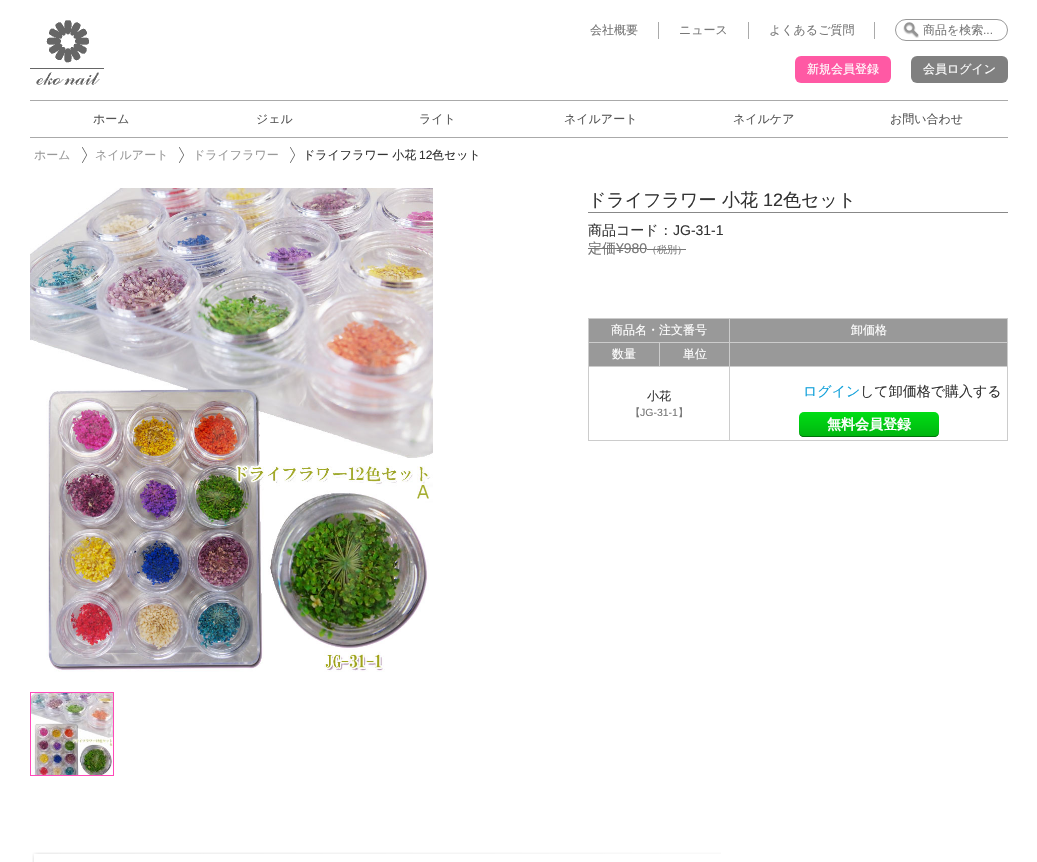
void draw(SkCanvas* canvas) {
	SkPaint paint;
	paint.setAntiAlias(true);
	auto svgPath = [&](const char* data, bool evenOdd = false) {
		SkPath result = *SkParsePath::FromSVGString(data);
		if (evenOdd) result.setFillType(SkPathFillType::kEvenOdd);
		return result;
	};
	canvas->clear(0xffffffff);
	canvas->drawImageRect(SkImages::DeferredFromEncodedData(SkData::MakeFromFileName("img1.png")), SkRect::MakeXYWH(30, 20, 74, 65), SkSamplingOptions());
	paint.setColor(0xffaaaaaa);
	canvas->drawRect(SkRect::MakeXYWH(658, 22, 1, 17), paint);
	SkFont f1(fontMgr->matchFamilyStyle("WenQuanYi Zen Hei", SkFontStyle(500, SkFontStyle::kNormal_Width, SkFontStyle::kUpright_Slant)), 12);
	f1.setSubpixel(true);
	paint.setColor(0xff777777);
	canvas->drawString("会社概要", 590, 34, f1, paint);
	paint.setColor(0xffaaaaaa);
	canvas->drawRect(SkRect::MakeXYWH(748, 22, 1, 17), paint);
	paint.setColor(0xff777777);
	canvas->drawString("ニュース", 679, 34, f1, paint);
	paint.setColor(0xffaaaaaa);
	canvas->drawRect(SkRect::MakeXYWH(874, 22, 1, 17), paint);
	paint.setColor(0xff777777);
	canvas->drawString("よくあるご質問", 769, 34, f1, paint);
	canvas->drawImageRect(SkImages::DeferredFromEncodedData(SkData::MakeFromFileName("img2.png")), SkRect::MakeXYWH(903, 22, 16, 16), SkSamplingOptions());
	paint.setStroke(true);
	paint.setStrokeWidth(1);
	paint.setColor(0xff999999);
	canvas->drawRoundRect(SkRect::MakeXYWH(895.5, 19.5, 112, 21), 10.5, 10.5, paint);
	paint.setStroke(false);
	paint.setColor(0xff777777);
	canvas->drawString("商品を検索", 923, 34, f1, paint);
	SkFont f2(fontMgr->matchFamilyStyle("Liberation Sans", SkFontStyle::Normal()), 12);
	f2.setSubpixel(true);
	canvas->drawString("...", 983, 34, f2, paint);
	paint.setColor(0xffff59a4);
	canvas->drawRoundRect(SkRect::MakeXYWH(795, 56, 96, 27), 6, 6, paint);
	paint.setColor(0xffffffff);
	canvas->drawString("新規会員登録", 807, 73, f1, paint);
	paint.setColor(0xff808080);
	canvas->drawRoundRect(SkRect::MakeXYWH(911, 56, 97, 27), 6, 6, paint);
	paint.setColor(0xffffffff);
	canvas->drawString("会員ログイン", 923, 73, f1, paint);
	paint.setColor(0xffaaaaaa);
	canvas->drawRect(SkRect::MakeXYWH(30, 100, 978, 1), paint);
	canvas->drawRect(SkRect::MakeXYWH(30, 137, 978, 1), paint);
	paint.setColor(0xff555555);
	canvas->drawString("ホーム", 93, 123, f1, paint);
	canvas->drawString("ジェル", 256, 123, f1, paint);
	canvas->drawString("ライト", 419, 123, f1, paint);
	canvas->drawString("ネイルアート", 564, 123, f1, paint);
	canvas->drawString("ネイルケア", 733, 123, f1, paint);
	canvas->drawString("お問い合わせ", 890, 123, f1, paint);
	paint.setColor(0xff999999);
	canvas->drawString("ホーム", 34, 159, f1, paint);
	canvas->drawImageRect(SkImages::DeferredFromEncodedData(SkData::MakeFromFileName("img3.png")), SkRect::MakeXYWH(82, 147, 5, 16), SkSamplingOptions());
	canvas->drawString("ネイルアート", 95, 159, f1, paint);
	canvas->drawImageRect(SkImages::DeferredFromEncodedData(SkData::MakeFromFileName("img3.png")), SkRect::MakeXYWH(179, 147, 5, 16), SkSamplingOptions());
	canvas->drawString("ドライフラワー", 193, 159, f1, paint);
	canvas->drawImageRect(SkImages::DeferredFromEncodedData(SkData::MakeFromFileName("img3.png")), SkRect::MakeXYWH(290, 147, 5, 16), SkSamplingOptions());
	paint.setColor(0xff333333);
	canvas->drawString("ドライフラワー 小花", 303, 159, f1, paint);
	canvas->drawString("12", 419, 159, f2, paint);
	canvas->drawString("色セット", 432, 159, f1, paint);
	canvas->drawImageRect(SkImages::DeferredFromEncodedData(SkData::MakeFromFileName("img4.png")), SkRect::MakeXYWH(30, 188, 403, 484), SkSamplingOptions());
	paint.setStroke(true);
	paint.setColor(0xffff49b9);
	canvas->drawRect(SkRect::MakeXYWH(30.5, 692.5, 83, 83), paint);
	canvas->drawImageRect(SkImages::DeferredFromEncodedData(SkData::MakeFromFileName("img5.png")), SkRect::MakeXYWH(31, 693, 82, 82), SkSamplingOptions());
	paint.setStroke(false);
	paint.setColor(0xff888888);
	canvas->drawRect(SkRect::MakeXYWH(588, 212, 420, 1), paint);
	SkFont f3(fontMgr->matchFamilyStyle("WenQuanYi Zen Hei", SkFontStyle(500, SkFontStyle::kNormal_Width, SkFontStyle::kUpright_Slant)), 18);
	f3.setSubpixel(true);
	paint.setColor(0xff333333);
	canvas->drawString("ドライフラワー 小花", 588, 206, f3, paint);
	SkFont f4(fontMgr->matchFamilyStyle("Liberation Sans", SkFontStyle::Normal()), 18);
	f4.setSubpixel(true);
	canvas->drawString("12", 763, 206, f4, paint);
	canvas->drawString("色セット", 783, 206, f3, paint);
	SkFont f5(fontMgr->matchFamilyStyle("WenQuanYi Zen Hei", SkFontStyle(500, SkFontStyle::kNormal_Width, SkFontStyle::kUpright_Slant)), 14);
	f5.setSubpixel(true);
	canvas->drawString("商品コード：", 588, 235, f5, paint);
	SkFont f6(fontMgr->matchFamilyStyle("Liberation Sans", SkFontStyle::Normal()), 14);
	f6.setSubpixel(true);
	canvas->drawString("JG-31-1", 673, 235, f6, paint);
	paint.setColor(0xff777777);
	canvas->drawString("定価", 588, 253, f5, paint);
	canvas->drawString("¥980", 616, 253, f6, paint);
	canvas->drawRect(SkRect::MakeXYWH(588, 248, 59, 1), paint);
	SkFont f7(fontMgr->matchFamilyStyle("WenQuanYi Zen Hei", SkFontStyle(500, SkFontStyle::kNormal_Width, SkFontStyle::kUpright_Slant)), 10);
	f7.setSubpixel(true);
	canvas->drawString("（税別）", 647, 253, f7, paint);
	canvas->drawRect(SkRect::MakeXYWH(647, 249, 39, 1), paint);
	paint.setColor(0xffcccccc);
	canvas->drawRect(SkRect::MakeXYWH(588, 318, 420, 1), paint);
	canvas->drawRect(SkRect::MakeXYWH(1007, 318, 1, 123), paint);
	canvas->drawRect(SkRect::MakeXYWH(588, 440, 420, 1), paint);
	canvas->drawRect(SkRect::MakeXYWH(588, 318, 1, 123), paint);
	paint.setColor(0xff999999);
	canvas->drawRect(SkRect::MakeXYWH(589, 319, 140, 23), paint);
	paint.setColor(0xffffffff);
	canvas->drawString("商品名・注文番号", 611, 334, f1, paint);
	paint.setColor(0xff999999);
	canvas->drawRect(SkRect::MakeXYWH(730, 319, 277, 23), paint);
	paint.setColor(0xffcccccc);
	canvas->drawRect(SkRect::MakeXYWH(729, 342, 279, 1), paint);
	canvas->drawRect(SkRect::MakeXYWH(729, 366, 279, 1), paint);
	canvas->drawRect(SkRect::MakeXYWH(729, 366, 1, 75), paint);
	canvas->drawRect(SkRect::MakeXYWH(588, 366, 142, 1), paint);
	canvas->drawRect(SkRect::MakeXYWH(729, 342, 1, 25), paint);
	canvas->drawRect(SkRect::MakeXYWH(659, 342, 71, 1), paint);
	canvas->drawRect(SkRect::MakeXYWH(729, 318, 1, 25), paint);
	paint.setColor(0xffffffff);
	canvas->drawString("卸価格", 851, 334, f1, paint);
	paint.setColor(0xff999999);
	canvas->drawRect(SkRect::MakeXYWH(589, 343, 70, 23), paint);
	paint.setColor(0xffcccccc);
	canvas->drawRect(SkRect::MakeXYWH(659, 342, 1, 25), paint);
	canvas->drawRect(SkRect::MakeXYWH(588, 342, 72, 1), paint);
	paint.setColor(0xffffffff);
	canvas->drawString("数量", 612, 358, f1, paint);
	paint.setColor(0xff999999);
	canvas->drawRect(SkRect::MakeXYWH(660, 343, 69, 23), paint);
	paint.setColor(0xffffffff);
	canvas->drawString("単位", 683, 358, f1, paint);
	paint.setColor(0xff999999);
	canvas->drawRect(SkRect::MakeXYWH(730, 343, 277, 23), paint);
	paint.setColor(0xff333333);
	canvas->drawString("小花", 647, 400, f1, paint);
	SkFont f8(fontMgr->matchFamilyStyle("WenQuanYi Zen Hei", SkFontStyle(500, SkFontStyle::kNormal_Width, SkFontStyle::kUpright_Slant)), 10.5);
	f8.setSubpixel(true);
	paint.setColor(0xff777777);
	canvas->drawString("【", 630, 416, f8, paint);
	SkFont f9(fontMgr->matchFamilyStyle("Liberation Sans", SkFontStyle::Normal()), 10.5);
	f9.setSubpixel(true);
	canvas->drawString("JG-31-1", 640, 416, f9, paint);
	canvas->drawString("】", 678, 416, f8, paint);
	paint.setColor(0xff0fa0da);
	canvas->drawString("ログイン", 803, 396, f5, paint);
	paint.setColor(0xff333333);
	canvas->drawString("して卸価格で購入する", 860, 396, f5, paint);
	{
		const SkColor colors[] = {0xff00de14, 0xff00b510};
		const float stops[] = {0, 1};
		const SkPoint ends[] = {{869, 412}, {869, 437}};
		paint.setShader(SkGradientShader::MakeLinear(ends, colors, stops, 2, SkTileMode::kClamp));
		paint.setAlpha(255);
	}
	canvas->drawRoundRect(SkRect::MakeXYWH(799, 412, 140, 25), 5, 5, paint);
	paint.setShader(nullptr);
	paint.setColor(0xff00720a);
	canvas->drawPath(svgPath("M799 431V432C799 435 801 437 804 437H934C937 437 939 435 939 432V431C939 434 937 436 934 436H804C801 436 799 434 799 431Z"), paint);
	SkFont f10(fontMgr->matchFamilyStyle("WenQuanYi Zen Hei", SkFontStyle::Bold()), 14);
	f10.setSubpixel(true);
	paint.setColor(0xffffffff);
	canvas->drawString("無料会員登録", 827, 429, f10, paint);
	canvas->drawImageRect(SkImages::DeferredFromEncodedData(SkData::MakeFromFileName("img6.png")), SkRect::MakeXYWH(32, 852, 689, 10), SkSamplingOptions());
}
